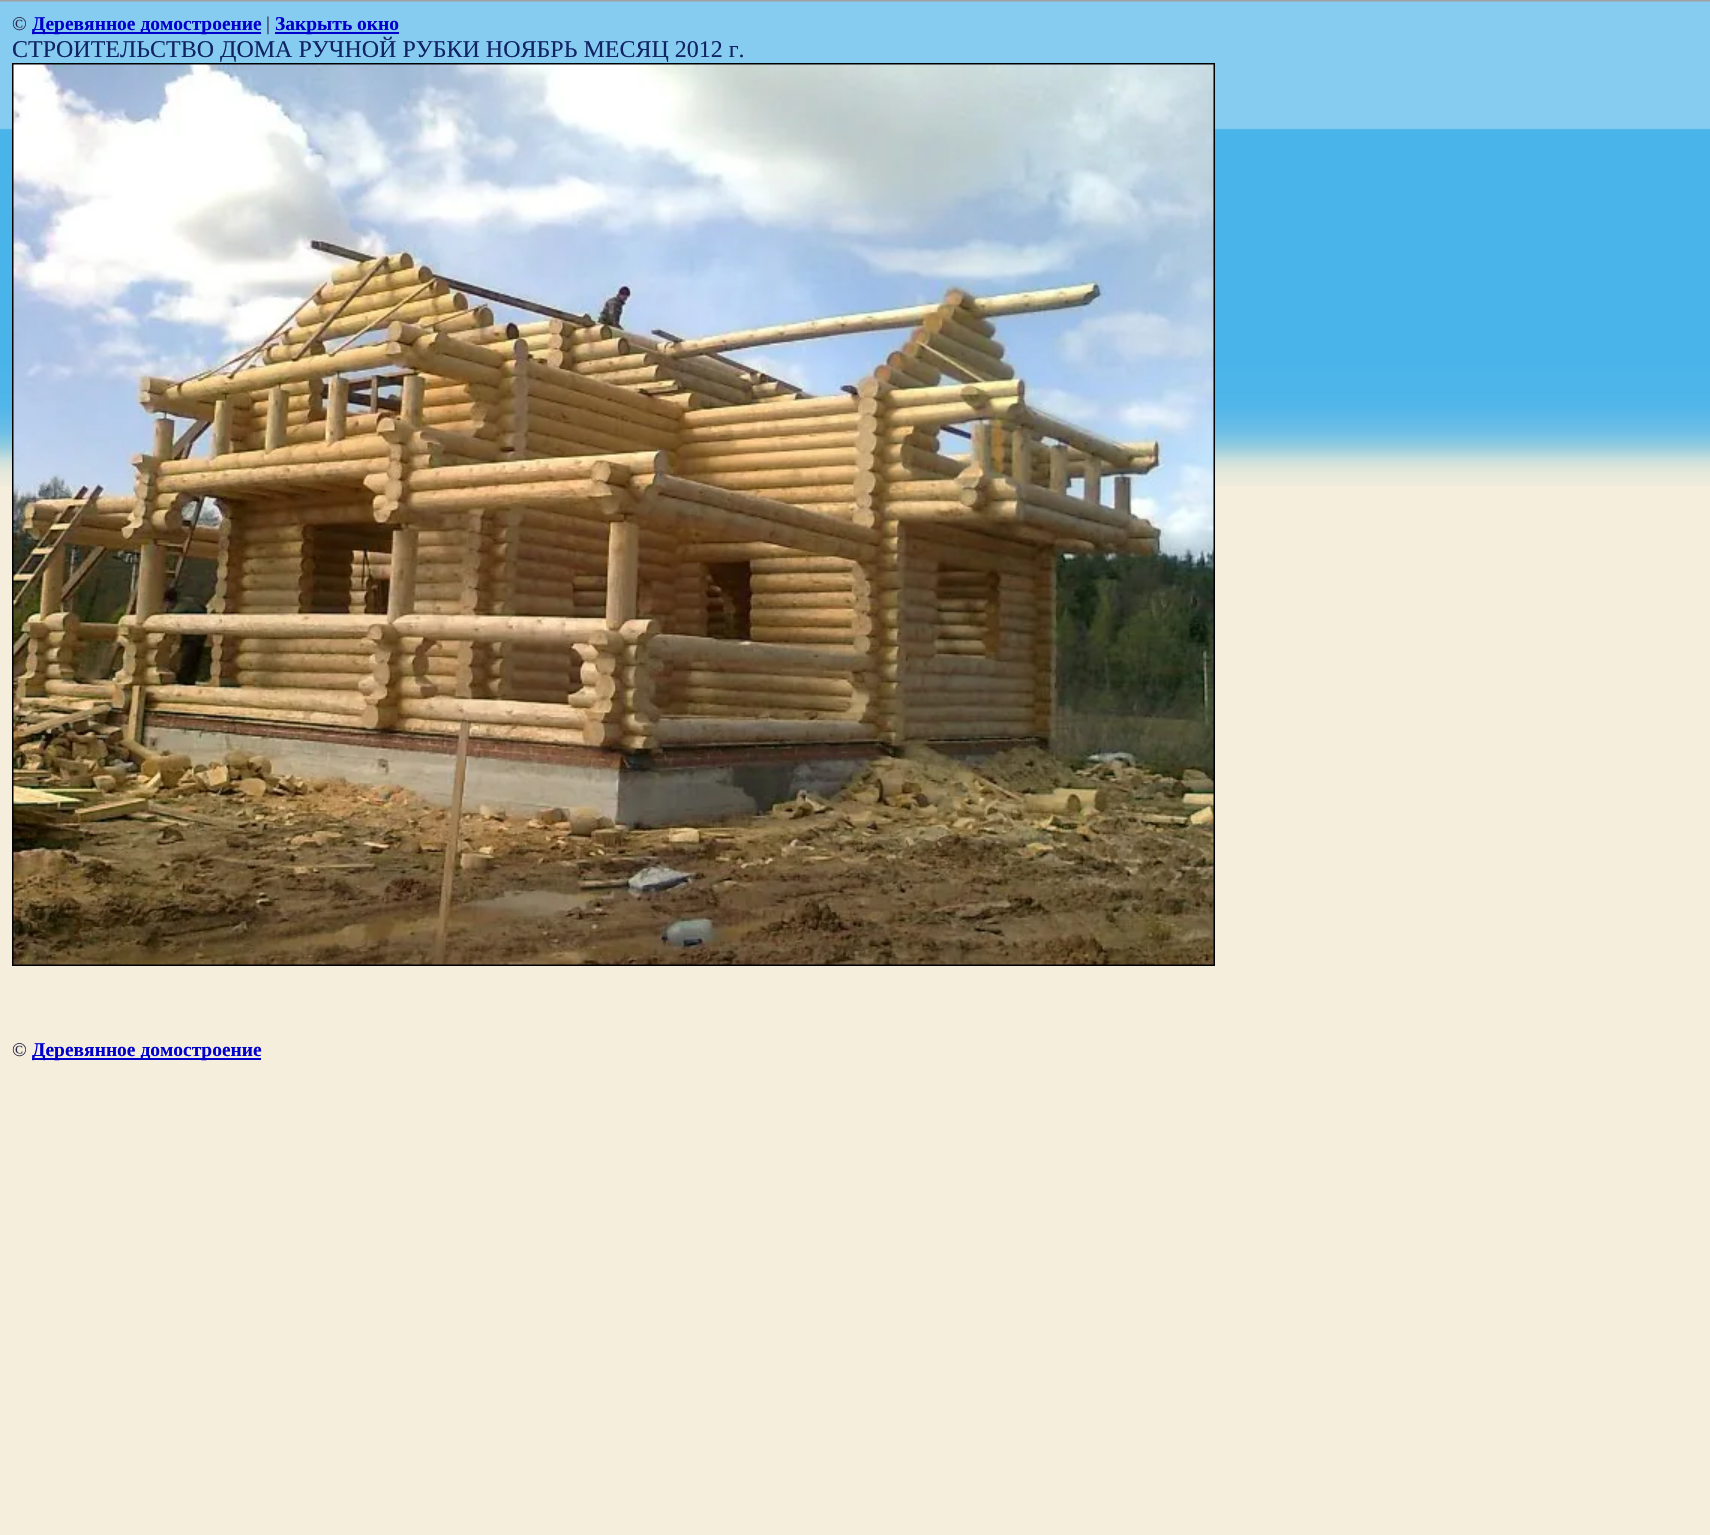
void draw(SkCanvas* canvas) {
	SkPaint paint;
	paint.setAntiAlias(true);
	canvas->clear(0xfff5eedc);
	canvas->drawImageRect(SkImages::DeferredFromEncodedData(SkData::MakeFromFileName("img1.png")), SkRect::MakeXYWH(0, 0, 1710, 486), SkSamplingOptions());
	SkFont f1(fontMgr->matchFamilyStyle("Liberation Serif", SkFontStyle::Normal()), 19.5);
	f1.setSubpixel(true);
	paint.setColor(0xff282848);
	canvas->drawString("©", 12, 30, f1, paint);
	paint.setColor(0xff0000cc);
	canvas->drawRect(SkRect::MakeXYWH(32, 32, 229, 2), paint);
	SkFont f2(fontMgr->matchFamilyStyle("Liberation Serif", SkFontStyle::Bold()), 19.5);
	f2.setSubpixel(true);
	canvas->drawString("Деревянное домостроение", 32, 30, f2, paint);
	paint.setColor(0xff282848);
	canvas->drawString("|", 266, 30, f1, paint);
	paint.setColor(0xff0000cc);
	canvas->drawRect(SkRect::MakeXYWH(275, 32, 124, 2), paint);
	canvas->drawString("Закрыть окно", 275, 30, f2, paint);
	SkFont f3(fontMgr->matchFamilyStyle("Liberation Serif", SkFontStyle::Normal()), 24);
	f3.setSubpixel(true);
	paint.setColor(0xff112365);
	canvas->drawString("СТРОИТЕЛЬСТВО ДОМА РУЧНОЙ РУБКИ НОЯБРЬ МЕСЯЦ 2012 г.", 12, 57, f3, paint);
	paint.setStroke(true);
	paint.setStrokeWidth(2);
	paint.setColor(0xff000000);
	canvas->drawRect(SkRect::MakeXYWH(13, 64, 1201, 901), paint);
	canvas->drawImageRect(SkImages::DeferredFromEncodedData(SkData::MakeFromFileName("img2.png")), SkRect::MakeXYWH(13, 64, 1201, 901), SkSamplingOptions());
	paint.setStroke(false);
	paint.setColor(0xff282848);
	canvas->drawString("©", 12, 1056, f1, paint);
	paint.setColor(0xff0000cc);
	canvas->drawRect(SkRect::MakeXYWH(32, 1058, 229, 2), paint);
	canvas->drawString("Деревянное домостроение", 32, 1056, f2, paint);
}
